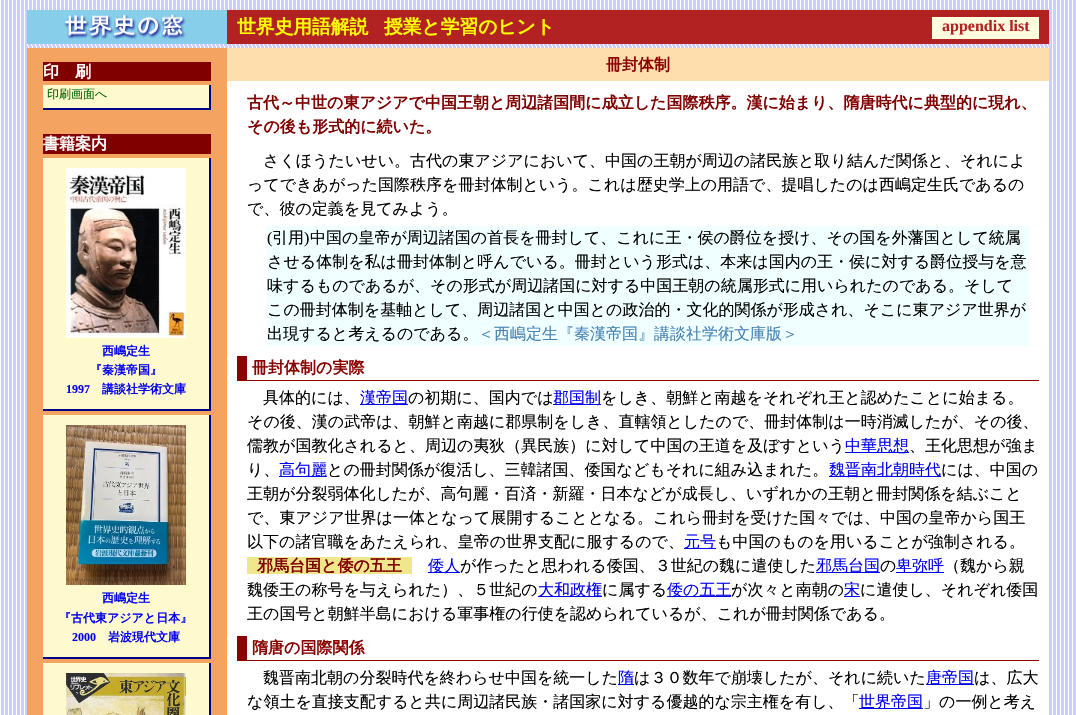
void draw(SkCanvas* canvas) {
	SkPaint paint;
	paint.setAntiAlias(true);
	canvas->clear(0xffffffff);
	canvas->drawImageRect(SkImages::DeferredFromEncodedData(SkData::MakeFromFileName("img1.png")), SkRect::MakeXYWH(1, 0, 1075, 715), SkSamplingOptions());
	canvas->drawImageRect(SkImages::DeferredFromEncodedData(SkData::MakeFromFileName("img2.png")), SkRect::MakeXYWH(27, 44, 1022, 2), SkSamplingOptions());
	paint.setColor(0xffb22222);
	canvas->drawRect(SkRect::MakeXYWH(227, 10, 822, 34), paint);
	canvas->drawImageRect(SkImages::DeferredFromEncodedData(SkData::MakeFromFileName("img3.png")), SkRect::MakeXYWH(27, 10, 200, 34), SkSamplingOptions());
	SkFont f1(fontMgr->matchFamilyStyle("WenQuanYi Zen Hei", SkFontStyle::Bold()), 18.75);
	f1.setSubpixel(true);
	paint.setColor(0xffffff00);
	canvas->drawString("世界史用語解説", 237, 33, f1, paint);
	canvas->drawString("授業と学習のヒント", 384, 33, f1, paint);
	paint.setColor(0xffffffe0);
	canvas->drawRect(SkRect::MakeXYWH(932, 17, 107, 22), paint);
	SkFont f2(fontMgr->matchFamilyStyle("Liberation Serif", SkFontStyle::Bold()), 16);
	f2.setSubpixel(true);
	paint.setColor(0xffb22222);
	canvas->drawString("appendix list", 942, 31, f2, paint);
	paint.setColor(0xfff4a460);
	canvas->drawRect(SkRect::MakeXYWH(27, 48, 200, 667), paint);
	paint.setColor(0xff800000);
	canvas->drawRect(SkRect::MakeXYWH(43, 62, 168, 19), paint);
	SkFont f3(fontMgr->matchFamilyStyle("WenQuanYi Zen Hei", SkFontStyle::Bold()), 16);
	f3.setSubpixel(true);
	paint.setColor(0xffffffff);
	canvas->drawString("印　刷", 43, 77, f3, paint);
	paint.setColor(0xfffffacd);
	canvas->drawRect(SkRect::MakeXYWH(43, 85, 166, 23), paint);
	paint.setColor(0xff00008b);
	canvas->drawRect(SkRect::MakeXYWH(209, 85, 2, 25), paint);
	canvas->drawRect(SkRect::MakeXYWH(43, 108, 168, 2), paint);
	SkFont f4(fontMgr->matchFamilyStyle("WenQuanYi Zen Hei", SkFontStyle(500, SkFontStyle::kNormal_Width, SkFontStyle::kUpright_Slant)), 12);
	f4.setSubpixel(true);
	paint.setColor(0xff006400);
	canvas->drawString("印刷画面へ", 47, 98, f4, paint);
	paint.setColor(0xff800000);
	canvas->drawRect(SkRect::MakeXYWH(43, 134, 168, 20), paint);
	paint.setColor(0xffffffff);
	canvas->drawString("書籍案内", 43, 149, f3, paint);
	paint.setColor(0xfffffacd);
	canvas->drawRect(SkRect::MakeXYWH(43, 158, 166, 251), paint);
	paint.setColor(0xff00008b);
	canvas->drawRect(SkRect::MakeXYWH(209, 158, 2, 253), paint);
	canvas->drawRect(SkRect::MakeXYWH(43, 409, 168, 2), paint);
	canvas->drawImageRect(SkImages::DeferredFromEncodedData(SkData::MakeFromFileName("img4.png")), SkRect::MakeXYWH(66, 168, 120, 170), SkSamplingOptions());
	SkFont f5(fontMgr->matchFamilyStyle("WenQuanYi Zen Hei", SkFontStyle::Bold()), 12);
	f5.setSubpixel(true);
	paint.setColor(0xff0000ee);
	canvas->drawString("西嶋定生", 102, 355, f5, paint);
	canvas->drawString("『秦漢帝国』", 90, 374, f5, paint);
	SkFont f6(fontMgr->matchFamilyStyle("Liberation Serif", SkFontStyle::Bold()), 12);
	f6.setSubpixel(true);
	canvas->drawString("1997", 66, 393, f6, paint);
	canvas->drawString("講談社学術文庫", 102, 393, f5, paint);
	paint.setColor(0xfffffacd);
	canvas->drawRect(SkRect::MakeXYWH(43, 415, 166, 242), paint);
	paint.setColor(0xff00008b);
	canvas->drawRect(SkRect::MakeXYWH(209, 415, 2, 244), paint);
	canvas->drawRect(SkRect::MakeXYWH(43, 657, 168, 2), paint);
	canvas->drawImageRect(SkImages::DeferredFromEncodedData(SkData::MakeFromFileName("img5.png")), SkRect::MakeXYWH(66, 425, 120, 160), SkSamplingOptions());
	paint.setColor(0xff0000ee);
	canvas->drawString("西嶋定生", 102, 602, f5, paint);
	canvas->drawString("『古代東アジアと日本』", 59, 622, f5, paint);
	canvas->drawString("2000", 72, 641, f6, paint);
	canvas->drawString("岩波現代文庫", 108, 641, f5, paint);
	paint.setColor(0xfffffacd);
	canvas->drawRect(SkRect::MakeXYWH(43, 663, 166, 52), paint);
	paint.setColor(0xff00008b);
	canvas->drawRect(SkRect::MakeXYWH(209, 663, 2, 52), paint);
	canvas->drawImageRect(SkImages::DeferredFromEncodedData(SkData::MakeFromFileName("img6.png")), SkRect::MakeXYWH(66, 673, 120, 42), SkSamplingOptions());
	paint.setColor(0xffffffff);
	canvas->drawRect(SkRect::MakeXYWH(227, 81, 821, 634), paint);
	paint.setColor(0xffffdead);
	canvas->drawRect(SkRect::MakeXYWH(227, 48, 822, 33), paint);
	paint.setColor(0xff8b0000);
	canvas->drawString("冊封体制", 606, 70, f3, paint);
	paint.setColor(0xff800000);
	canvas->drawString("古代～中世の東アジアで中国王朝と周辺諸国間に成立した国際秩序。漢に始まり、隋唐時代に典型的に現れ、", 247, 108, f3, paint);
	canvas->drawString("その後も形式的に続いた。", 247, 132, f3, paint);
	SkFont f7(fontMgr->matchFamilyStyle("WenQuanYi Zen Hei", SkFontStyle(500, SkFontStyle::kNormal_Width, SkFontStyle::kUpright_Slant)), 16);
	f7.setSubpixel(true);
	paint.setColor(0xff000000);
	canvas->drawString("さくほうたいせい。古代の東アジアにおいて、中国の王朝が周辺の諸民族と取り結んだ関係と、それによ", 263, 166, f7, paint);
	canvas->drawString("ってできあがった国際秩序を冊封体制という。これは歴史学上の用語で、提唱したのは西嶋定生氏であるの", 247, 190, f7, paint);
	canvas->drawString("で、彼の定義を見てみよう。", 247, 214, f7, paint);
	paint.setColor(0xfff0ffff);
	canvas->drawRect(SkRect::MakeXYWH(267, 226, 762, 120), paint);
	SkFont f8(fontMgr->matchFamilyStyle("Liberation Serif", SkFontStyle::Normal()), 16);
	f8.setSubpixel(true);
	paint.setColor(0xff000000);
	canvas->drawString("(", 267, 243, f8, paint);
	canvas->drawString("引用", 272, 243, f7, paint);
	canvas->drawString(")", 304, 243, f8, paint);
	canvas->drawString("中国の皇帝が周辺諸国の首長を冊封して、これに王・侯の爵位を授け、その国を外藩国として統属", 310, 243, f7, paint);
	canvas->drawString("させる体制を私は冊封体制と呼んでいる。冊封という形式は、本来は国内の王・侯に対する爵位授与を意", 267, 267, f7, paint);
	canvas->drawString("味するものであるが、その形式が周辺諸国に対する中国王朝の統属形式に用いられたのである。そして", 267, 291, f7, paint);
	canvas->drawString("この冊封体制を基軸として、周辺諸国と中国との政治的・文化的関係が形成され、そこに東アジア世界が", 267, 315, f7, paint);
	canvas->drawString("出現すると考えるのである。", 267, 339, f7, paint);
	paint.setColor(0xff4682b4);
	canvas->drawString("＜西嶋定生『秦漢帝国』講談社学術文庫版＞", 478, 339, f7, paint);
	paint.setColor(0xff8b0000);
	canvas->drawRect(SkRect::MakeXYWH(247, 380, 792, 1), paint);
	canvas->drawRect(SkRect::MakeXYWH(237, 356, 10, 25), paint);
	canvas->drawString("冊封体制の実際", 252, 373, f3, paint);
	paint.setColor(0xff000000);
	canvas->drawString("具体的には、", 263, 403, f7, paint);
	paint.setColor(0xff0000ee);
	canvas->drawRect(SkRect::MakeXYWH(360, 404, 48, 1), paint);
	canvas->drawString("漢帝国", 360, 403, f7, paint);
	paint.setColor(0xff000000);
	canvas->drawString("の初期に、国内では", 408, 403, f7, paint);
	paint.setColor(0xff0000ee);
	canvas->drawRect(SkRect::MakeXYWH(553, 404, 48, 1), paint);
	canvas->drawString("郡国制", 553, 403, f7, paint);
	paint.setColor(0xff000000);
	canvas->drawString("をしき、朝鮮と南越をそれぞれ王と認めたことに始まる。", 601, 403, f7, paint);
	canvas->drawString("その後、漢の武帝は、朝鮮と南越に郡県制をしき、直轄領としたので、冊封体制は一時消滅したが、その後、", 247, 427, f7, paint);
	canvas->drawString("儒教が国教化されると、周辺の夷狄（異民族）に対して中国の王道を及ぼすという", 247, 451, f7, paint);
	paint.setColor(0xff0000ee);
	canvas->drawRect(SkRect::MakeXYWH(845, 452, 64, 1), paint);
	canvas->drawString("中華思想", 845, 451, f7, paint);
	paint.setColor(0xff000000);
	canvas->drawString("、王化思想が強ま", 909, 451, f7, paint);
	canvas->drawString("り、", 247, 475, f7, paint);
	paint.setColor(0xff0000ee);
	canvas->drawRect(SkRect::MakeXYWH(279, 476, 48, 1), paint);
	canvas->drawString("高句麗", 279, 475, f7, paint);
	paint.setColor(0xff000000);
	canvas->drawString("との冊封関係が復活し、三韓諸国、倭国などもそれに組み込まれた。", 327, 475, f7, paint);
	paint.setColor(0xff0000ee);
	canvas->drawRect(SkRect::MakeXYWH(829, 476, 112, 1), paint);
	canvas->drawString("魏晋南北朝時代", 829, 475, f7, paint);
	paint.setColor(0xff000000);
	canvas->drawString("には、中国の", 941, 475, f7, paint);
	canvas->drawString("王朝が分裂弱体化したが、高句麗・百済・新羅・日本などが成長し、いずれかの王朝と冊封関係を結ぶこと", 247, 499, f7, paint);
	canvas->drawString("で、東アジア世界は一体となって展開することとなる。これら冊封を受けた国々では、中国の皇帝から国王", 247, 523, f7, paint);
	canvas->drawString("以下の諸官職をあたえられ、皇帝の世界支配に服するので、", 247, 547, f7, paint);
	paint.setColor(0xff0000ee);
	canvas->drawRect(SkRect::MakeXYWH(684, 548, 32, 1), paint);
	canvas->drawString("元号", 684, 547, f7, paint);
	paint.setColor(0xff000000);
	canvas->drawString("も中国のものを用いることが強制される。", 716, 547, f7, paint);
	paint.setColor(0xfff0e68c);
	canvas->drawRect(SkRect::MakeXYWH(247, 557, 165, 17), paint);
	paint.setColor(0xff800000);
	canvas->drawString("邪馬台国と倭の五王", 257, 571, f3, paint);
	paint.setColor(0xff0000ee);
	canvas->drawRect(SkRect::MakeXYWH(428, 572, 32, 1), paint);
	canvas->drawString("倭人", 428, 571, f7, paint);
	paint.setColor(0xff000000);
	canvas->drawString("が作ったと思われる倭国、３世紀の魏に遣使した", 460, 571, f7, paint);
	paint.setColor(0xff0000ee);
	canvas->drawRect(SkRect::MakeXYWH(816, 572, 64, 1), paint);
	canvas->drawString("邪馬台国", 816, 571, f7, paint);
	paint.setColor(0xff000000);
	canvas->drawString("の", 880, 571, f7, paint);
	paint.setColor(0xff0000ee);
	canvas->drawRect(SkRect::MakeXYWH(896, 572, 48, 1), paint);
	canvas->drawString("卑弥呼", 896, 571, f7, paint);
	paint.setColor(0xff000000);
	canvas->drawString("（魏から親", 944, 571, f7, paint);
	canvas->drawString("魏倭王の称号を与えられた）、５世紀の", 247, 595, f7, paint);
	paint.setColor(0xff0000ee);
	canvas->drawRect(SkRect::MakeXYWH(538, 596, 64, 1), paint);
	canvas->drawString("大和政権", 538, 595, f7, paint);
	paint.setColor(0xff000000);
	canvas->drawString("に属する", 602, 595, f7, paint);
	paint.setColor(0xff0000ee);
	canvas->drawRect(SkRect::MakeXYWH(667, 596, 64, 1), paint);
	canvas->drawString("倭の五王", 667, 595, f7, paint);
	paint.setColor(0xff000000);
	canvas->drawString("が次々と南朝の", 731, 595, f7, paint);
	paint.setColor(0xff0000ee);
	canvas->drawRect(SkRect::MakeXYWH(844, 596, 16, 1), paint);
	canvas->drawString("宋", 844, 595, f7, paint);
	paint.setColor(0xff000000);
	canvas->drawString("に遣使し、それぞれ倭国", 860, 595, f7, paint);
	canvas->drawString("王の国号と朝鮮半島における軍事権の行使を認められているが、これが冊封関係である。", 247, 619, f7, paint);
	paint.setColor(0xff8b0000);
	canvas->drawRect(SkRect::MakeXYWH(247, 660, 792, 1), paint);
	canvas->drawRect(SkRect::MakeXYWH(237, 636, 10, 25), paint);
	canvas->drawString("隋唐の国際関係", 252, 653, f3, paint);
	paint.setColor(0xff000000);
	canvas->drawString("魏晋南北朝の分裂時代を終わらせ中国を統一した", 263, 683, f7, paint);
	paint.setColor(0xff0000ee);
	canvas->drawRect(SkRect::MakeXYWH(618, 684, 16, 1), paint);
	canvas->drawString("隋", 618, 683, f7, paint);
	paint.setColor(0xff000000);
	canvas->drawString("は３０数年で崩壊したが、それに続いた", 634, 683, f7, paint);
	paint.setColor(0xff0000ee);
	canvas->drawRect(SkRect::MakeXYWH(926, 684, 48, 1), paint);
	canvas->drawString("唐帝国", 926, 683, f7, paint);
	paint.setColor(0xff000000);
	canvas->drawString("は、広大", 974, 683, f7, paint);
	canvas->drawString("な領土を直接支配すると共に周辺諸民族・諸国家に対する優越的な宗主権を有し、「", 247, 707, f7, paint);
	paint.setColor(0xff0000ee);
	canvas->drawRect(SkRect::MakeXYWH(859, 708, 64, 1), paint);
	canvas->drawString("世界帝国", 859, 707, f7, paint);
	paint.setColor(0xff000000);
	canvas->drawString("」の一例と考え", 923, 707, f7, paint);
}
